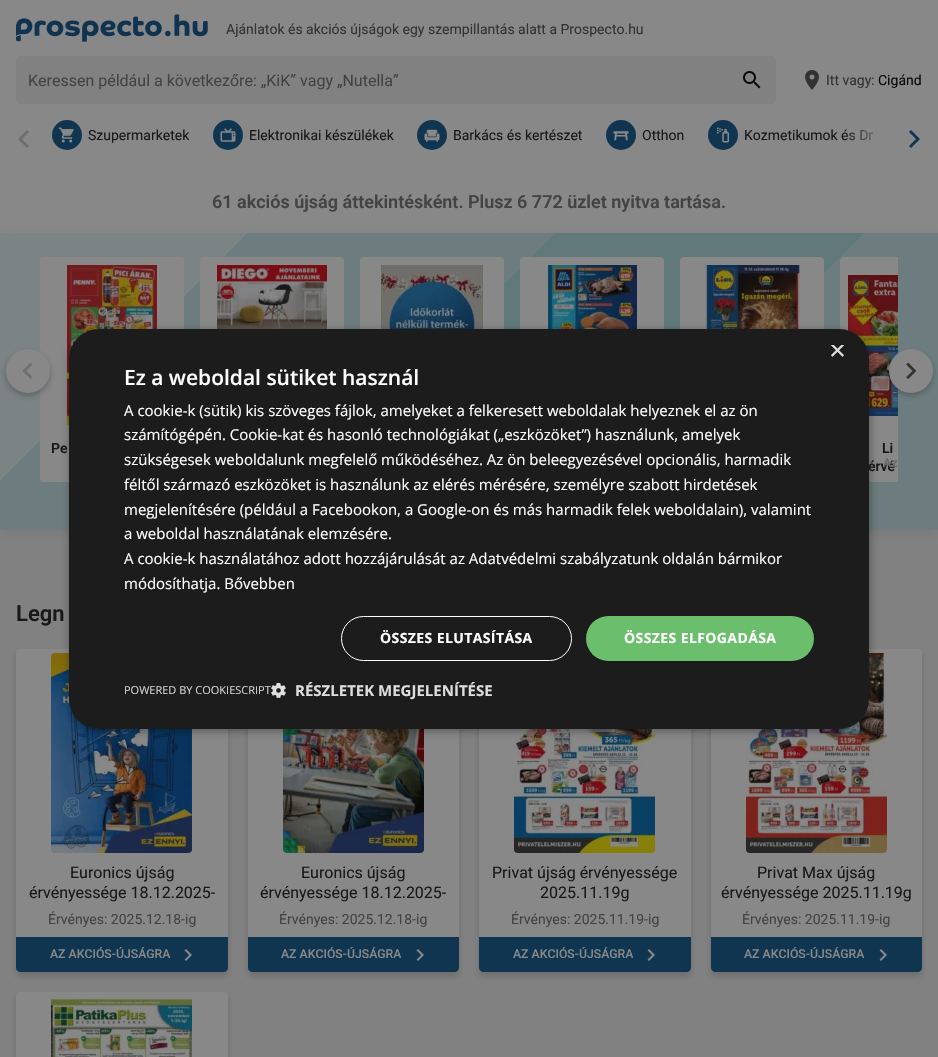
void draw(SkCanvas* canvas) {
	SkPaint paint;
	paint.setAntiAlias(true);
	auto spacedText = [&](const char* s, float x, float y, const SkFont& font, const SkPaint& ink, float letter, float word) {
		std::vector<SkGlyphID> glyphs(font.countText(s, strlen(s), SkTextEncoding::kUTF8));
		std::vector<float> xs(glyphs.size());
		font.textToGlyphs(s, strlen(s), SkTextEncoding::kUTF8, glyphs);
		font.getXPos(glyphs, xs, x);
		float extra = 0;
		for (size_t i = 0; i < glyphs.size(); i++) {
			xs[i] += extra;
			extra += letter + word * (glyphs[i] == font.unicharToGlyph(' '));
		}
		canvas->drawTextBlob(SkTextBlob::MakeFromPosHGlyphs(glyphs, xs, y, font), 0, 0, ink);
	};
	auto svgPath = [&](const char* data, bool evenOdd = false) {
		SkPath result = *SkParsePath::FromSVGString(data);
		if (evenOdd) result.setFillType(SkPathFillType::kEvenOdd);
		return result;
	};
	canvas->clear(0xff818181);
	paint.setColor(0xff888888);
	canvas->drawRect(SkRect::MakeXYWH(0, 0, 938, 233), paint);
	canvas->drawImageRect(SkImages::DeferredFromEncodedData(SkData::MakeFromFileName("img1.png")), SkRect::MakeXYWH(16, 14, 192, 28), SkSamplingOptions());
	SkFont f1(fontMgr->matchFamilyStyle("Roboto", SkFontStyle::Normal()), 14);
	f1.setSubpixel(true);
	paint.setColor(0xff333333);
	canvas->drawString("Ajánlatok és akciós újságok egy szempillantás alatt a Prospecto.hu", 226, 34, f1, paint);
	paint.setColor(0xff818181);
	canvas->drawRoundRect(SkRect::MakeXYWH(16, 56, 760, 48), 4, 4, paint);
	SkFont f2(fontMgr->matchFamilyStyle("Roboto", SkFontStyle::Normal()), 16);
	f2.setSubpixel(true);
	paint.setColor(0xff434343);
	canvas->drawString("Keressen például a következőre: „KiK” vagy „Nutella”", 28, 86, f2, paint);
	canvas->drawImageRect(SkImages::DeferredFromEncodedData(SkData::MakeFromFileName("img2.png")), SkRect::MakeXYWH(743, 71, 18, 18), SkSamplingOptions());
	canvas->drawImageRect(SkImages::DeferredFromEncodedData(SkData::MakeFromFileName("img3.png")), SkRect::MakeXYWH(805, 70, 14, 20), SkSamplingOptions());
	paint.setColor(0xff333333);
	canvas->drawString("Itt vagy:", 826, 85, f1, paint);
	paint.setColor(0xff090909);
	canvas->drawString("Cigánd", 878, 85, f1, paint);
	paint.setColor(0xff103551);
	canvas->drawCircle(67, 135, 15, paint);
	canvas->drawImageRect(SkImages::DeferredFromEncodedData(SkData::MakeFromFileName("img4.png")), SkRect::MakeXYWH(58, 127, 16, 16), SkSamplingOptions());
	paint.setColor(0xff191919);
	canvas->drawString("Szupermarketek", 88, 140, f1, paint);
	paint.setColor(0xff103551);
	canvas->drawCircle(228, 135, 15, paint);
	canvas->drawImageRect(SkImages::DeferredFromEncodedData(SkData::MakeFromFileName("img5.png")), SkRect::MakeXYWH(220, 128, 16, 14), SkSamplingOptions());
	paint.setColor(0xff191919);
	canvas->drawString("Elektronikai készülékek", 249, 140, f1, paint);
	paint.setColor(0xff103551);
	canvas->drawCircle(432, 135, 15, paint);
	canvas->drawImageRect(SkImages::DeferredFromEncodedData(SkData::MakeFromFileName("img6.png")), SkRect::MakeXYWH(424, 129, 16, 13), SkSamplingOptions());
	paint.setColor(0xff191919);
	canvas->drawString("Barkács és kertészet", 453, 140, f1, paint);
	paint.setColor(0xff103551);
	canvas->drawCircle(621, 135, 15, paint);
	canvas->drawImageRect(SkImages::DeferredFromEncodedData(SkData::MakeFromFileName("img7.png")), SkRect::MakeXYWH(613, 131, 16, 10), SkSamplingOptions());
	paint.setColor(0xff191919);
	canvas->drawString("Otthon", 642, 140, f1, paint);
	paint.setColor(0xff103551);
	canvas->drawCircle(723, 135, 15, paint);
	canvas->drawImageRect(SkImages::DeferredFromEncodedData(SkData::MakeFromFileName("img8.png")), SkRect::MakeXYWH(717, 127, 12, 16), SkSamplingOptions());
	paint.setColor(0xff191919);
	canvas->drawString("Kozmetikumok és Dr", 744, 140, f1, paint);
	paint.setColor(0xff6d6d6d);
	canvas->drawPath(svgPath("M29 146L22 139L29 132L27 130L18 139L27 148Z"), paint);
	{
		const SkColor colors[] = {0xff888888, 0x00888888};
		const float stops[] = {0, 1};
		const SkPoint ends[] = {{890, 139}, {842, 139}};
		paint.setShader(SkGradientShader::MakeLinear(ends, colors, stops, 2, SkTileMode::kClamp));
		paint.setAlpha(255);
	}
	canvas->drawRect(SkRect::MakeXYWH(843, 129, 30, 11), paint);
	paint.setShader(nullptr);
	paint.setColor(0xff103551);
	canvas->drawPath(svgPath("M909 146L916 139L909 132L911 130L920 139L911 148Z"), paint);
	SkFont f3(fontMgr->matchFamilyStyle("Roboto", SkFontStyle(600, SkFontStyle::kNormal_Width, SkFontStyle::kUpright_Slant)), 18);
	f3.setSubpixel(true);
	paint.setColor(0xff434343);
	canvas->drawString("61 akciós újság áttekintésként. Plusz 6 772 üzlet nyitva tartása.", 212, 208, f3, paint);
	paint.setColor(0x1a191919);
	paint.setMaskFilter(SkMaskFilter::MakeBlur(kNormal_SkBlurStyle, 6));
	canvas->drawRect(SkRect::MakeXYWH(0, 235, 938, 297), paint);
	paint.setMaskFilter(nullptr);
	{
		const SkColor colors[] = {0xff7b8384, 0xff7b8384, 0xff6d7d7f, 0xff6d7d7f, 0xff62797c, 0xff62797c, 0xff6d7d7f, 0xff6d7d7f};
		const float stops[] = {0, 0.2, 0.2, 0.45, 0.45, 0.7, 0.7, 1};
		const SkPoint ends[] = {{160, 73}, {778, 690}};
		paint.setShader(SkGradientShader::MakeLinear(ends, colors, stops, 8, SkTileMode::kClamp));
		paint.setAlpha(255);
	}
	canvas->drawRect(SkRect::MakeXYWH(0, 233, 938, 297), paint);
	paint.setShader(nullptr);
	paint.setColor(0xff888888);
	canvas->drawRoundRect(SkRect::MakeXYWH(200, 257, 144, 176), 4, 4, paint);
	canvas->drawImageRect(SkImages::DeferredFromEncodedData(SkData::MakeFromFileName("img12.png")), SkRect::MakeXYWH(217, 265, 110, 64), SkSamplingOptions());
	canvas->drawRoundRect(SkRect::MakeXYWH(360, 257, 144, 176), 4, 4, paint);
	canvas->drawImageRect(SkImages::DeferredFromEncodedData(SkData::MakeFromFileName("img13.png")), SkRect::MakeXYWH(381, 265, 102, 64), SkSamplingOptions());
	canvas->drawRoundRect(SkRect::MakeXYWH(520, 257, 144, 176), 4, 4, paint);
	canvas->drawImageRect(SkImages::DeferredFromEncodedData(SkData::MakeFromFileName("img14.png")), SkRect::MakeXYWH(548, 265, 89, 64), SkSamplingOptions());
	canvas->drawRoundRect(SkRect::MakeXYWH(680, 257, 144, 176), 4, 4, paint);
	canvas->drawImageRect(SkImages::DeferredFromEncodedData(SkData::MakeFromFileName("img15.png")), SkRect::MakeXYWH(704, 265, 97, 64), SkSamplingOptions());
	canvas->drawRoundRect(SkRect::MakeXYWH(40, 257, 144, 225), 4, 4, paint);
	canvas->drawRoundRect(SkRect::MakeXYWH(40, 257, 144, 176), 4, 4, paint);
	canvas->drawImageRect(SkImages::DeferredFromEncodedData(SkData::MakeFromFileName("img16.png")), SkRect::MakeXYWH(67, 265, 90, 160), SkSamplingOptions());
	canvas->drawPath(svgPath("M844 257H898V482H844C842 482 840 480 840 478V261C840 259 842 257 844 257Z"), paint);
	canvas->drawPath(svgPath("M844 257H898V433H844C842 433 840 431 840 429V261C840 259 842 257 844 257Z"), paint);
	canvas->drawImageRect(SkImages::DeferredFromEncodedData(SkData::MakeFromFileName("img17.png")), SkRect::MakeXYWH(848, 275, 50, 141), SkSamplingOptions());
	paint.setColor(0x33191919);
	paint.setMaskFilter(SkMaskFilter::MakeBlur(kNormal_SkBlurStyle, 3));
	canvas->drawRoundRect(SkRect::MakeXYWH(16, 653, 212, 323), 4, 4, paint);
	paint.setMaskFilter(nullptr);
	paint.setColor(0xff888888);
	canvas->drawRoundRect(SkRect::MakeXYWH(16, 649, 212, 323), 4, 4, paint);
	canvas->drawImageRect(SkImages::DeferredFromEncodedData(SkData::MakeFromFileName("img18.png")), SkRect::MakeXYWH(51, 653, 141, 200), SkSamplingOptions());
	paint.setColor(0x33191919);
	paint.setMaskFilter(SkMaskFilter::MakeBlur(kNormal_SkBlurStyle, 3));
	canvas->drawRoundRect(SkRect::MakeXYWH(248, 653, 211, 323), 4, 4, paint);
	paint.setMaskFilter(nullptr);
	paint.setColor(0xff888888);
	canvas->drawRoundRect(SkRect::MakeXYWH(248, 649, 211, 323), 4, 4, paint);
	canvas->drawImageRect(SkImages::DeferredFromEncodedData(SkData::MakeFromFileName("img20.png")), SkRect::MakeXYWH(283, 729, 141, 124), SkSamplingOptions());
	paint.setColor(0x33191919);
	paint.setMaskFilter(SkMaskFilter::MakeBlur(kNormal_SkBlurStyle, 3));
	canvas->drawRoundRect(SkRect::MakeXYWH(479, 653, 212, 323), 4, 4, paint);
	paint.setMaskFilter(nullptr);
	paint.setColor(0xff888888);
	canvas->drawRoundRect(SkRect::MakeXYWH(479, 649, 212, 323), 4, 4, paint);
	canvas->drawImageRect(SkImages::DeferredFromEncodedData(SkData::MakeFromFileName("img21.png")), SkRect::MakeXYWH(514, 729, 141, 124), SkSamplingOptions());
	paint.setColor(0x33191919);
	paint.setMaskFilter(SkMaskFilter::MakeBlur(kNormal_SkBlurStyle, 3));
	canvas->drawRoundRect(SkRect::MakeXYWH(711, 653, 211, 323), 4, 4, paint);
	paint.setMaskFilter(nullptr);
	paint.setColor(0xff888888);
	canvas->drawRoundRect(SkRect::MakeXYWH(711, 649, 211, 323), 4, 4, paint);
	canvas->drawImageRect(SkImages::DeferredFromEncodedData(SkData::MakeFromFileName("img22.png")), SkRect::MakeXYWH(746, 653, 141, 200), SkSamplingOptions());
	paint.setColor(0x59000000);
	paint.setMaskFilter(SkMaskFilter::MakeBlur(kNormal_SkBlurStyle, 4));
	canvas->drawRoundRect(SkRect::MakeXYWH(70, 331, 800, 400), 30, 30, paint);
	paint.setMaskFilter(nullptr);
	SkFont f4(fontMgr->matchFamilyStyle("Roboto", SkFontStyle(600, SkFontStyle::kNormal_Width, SkFontStyle::kUpright_Slant)), 14);
	f4.setSubpixel(true);
	paint.setColor(0xff191919);
	canvas->drawString("érvé", 868, 471, f4, paint);
	paint.setColor(0xff1c1c1c);
	canvas->drawRoundRect(SkRect::MakeXYWH(69, 329, 800, 400), 30, 30, paint);
	canvas->save();
	canvas->clipRect(SkRect::MakeXYWH(829, 345, 15, 15));
	SkFont f5(fontMgr->matchFamilyStyle("Liberation Sans", SkFontStyle::Normal()), 29);
	f5.setSubpixel(true);
	paint.setColor(0xffdddddd);
	canvas->drawString("×", 829, 360, f5, paint);
	canvas->restore();
	SkFont f6(fontMgr->matchFamilyStyle("Open Sans", SkFontStyle(600, SkFontStyle::kNormal_Width, SkFontStyle::kUpright_Slant)), 21);
	f6.setSubpixel(true);
	paint.setColor(0xffffffff);
	canvas->drawString("Ez a weboldal sütiket használ", 124, 385, f6, paint);
	SkFont f7(fontMgr->matchFamilyStyle("Open Sans", SkFontStyle::Normal()), 15);
	f7.setSubpixel(true);
	canvas->drawString("A cookie-k (sütik) kis szöveges fájlok, amelyeket a felkeresett weboldalak helyeznek el az ön", 124, 416, f7, paint);
	canvas->drawString("számítógépén. Cookie-kat és hasonló technológiákat („eszközöket”) használunk, amelyek", 124, 440, f7, paint);
	canvas->drawString("szükségesek weboldalunk megfelelő működéséhez. Az ön beleegyezésével opcionális, harmadik", 124, 465, f7, paint);
	canvas->drawString("féltől származó eszközöket is használunk az elérés mérésére, személyre szabott hirdetések", 124, 490, f7, paint);
	canvas->drawString("megjelenítésére (például a Facebookon, a Google-on és más harmadik felek weboldalain), valamint", 124, 515, f7, paint);
	canvas->drawString("a weboldal használatának elemzésére.", 124, 539, f7, paint);
	canvas->drawString("A cookie-k használatához adott hozzájárulását az Adatvédelmi szabályzatunk oldalán bármikor", 124, 564, f7, paint);
	canvas->drawString("módosíthatja. Bővebben", 124, 589, f7, paint);
	paint.setStroke(true);
	paint.setStrokeWidth(1);
	canvas->drawRoundRect(SkRect::MakeXYWH(341.5, 616.5, 230, 44), 22, 22, paint);
	SkFont f8(fontMgr->matchFamilyStyle("Open Sans", SkFontStyle::Bold()), 14);
	f8.setSubpixel(true);
	paint.setStroke(false);
	spacedText("ÖSSZES ELUTASÍTÁSA", 380, 643, f8, paint, 0.4, 0);
	paint.setColor(0xff6bbe6b);
	canvas->drawRoundRect(SkRect::MakeXYWH(586, 616, 228, 45), 22.5, 22.5, paint);
	paint.setColor(0xffffffff);
	spacedText("ÖSSZES ELFOGADÁSA", 624, 643, f8, paint, 0.4, 0);
	SkFont f9(fontMgr->matchFamilyStyle("Open Sans", SkFontStyle::Normal()), 11);
	f9.setSubpixel(true);
	paint.setColor(0xffd2d2d2);
	canvas->drawString("POWERED BY COOKIESCRIPT", 124, 694, f9, paint);
	canvas->drawImageRect(SkImages::DeferredFromEncodedData(SkData::MakeFromFileName("img9.png")), SkRect::MakeXYWH(271, 683, 15, 15), SkSamplingOptions());
	SkFont f10(fontMgr->matchFamilyStyle("Open Sans", SkFontStyle::Bold()), 15);
	f10.setSubpixel(true);
	paint.setColor(0xffdddddd);
	canvas->drawString("RÉSZLETEK MEGJELENÍTÉSE", 295, 696, f10, paint);
	paint.setColor(0x4d191919);
	paint.setMaskFilter(SkMaskFilter::MakeBlur(kNormal_SkBlurStyle, 3));
	canvas->drawRoundRect(SkRect::MakeXYWH(6, 352, 44, 44), 22, 22, paint);
	paint.setMaskFilter(nullptr);
	paint.setColor(0xff888888);
	canvas->drawCircle(28, 371, 22, paint);
	canvas->drawImageRect(SkImages::DeferredFromEncodedData(SkData::MakeFromFileName("img10.png")), SkRect::MakeXYWH(22, 362, 11, 17), SkSamplingOptions());
	paint.setColor(0x4d191919);
	paint.setMaskFilter(SkMaskFilter::MakeBlur(kNormal_SkBlurStyle, 3));
	canvas->drawRoundRect(SkRect::MakeXYWH(889, 352, 44, 44), 22, 22, paint);
	paint.setMaskFilter(nullptr);
	paint.setColor(0xff888888);
	canvas->drawCircle(911, 371, 22, paint);
	canvas->drawImageRect(SkImages::DeferredFromEncodedData(SkData::MakeFromFileName("img11.png")), SkRect::MakeXYWH(906, 362, 11, 17), SkSamplingOptions());
	paint.setColor(0xff191919);
	canvas->drawString("Pe", 51, 453, f4, paint);
	canvas->drawString("Li", 882, 453, f4, paint);
	SkFont f11(fontMgr->matchFamilyStyle("Roboto", SkFontStyle(600, SkFontStyle::kNormal_Width, SkFontStyle::kUpright_Slant)), 12.25);
	f11.setSubpixel(true);
	paint.setColor(0xff6a6a6a);
	canvas->drawString("Az", 883, 467, f11, paint);
	SkFont f12(fontMgr->matchFamilyStyle("Roboto", SkFontStyle(600, SkFontStyle::kNormal_Width, SkFontStyle::kUpright_Slant)), 22);
	f12.setSubpixel(true);
	paint.setColor(0xff191919);
	canvas->drawString("Legn", 16, 621, f12, paint);
	canvas->drawString("Euronics újság", 70, 878, f2, paint);
	canvas->drawString("érvényessége 18.12.2025-", 29, 898, f2, paint);
	paint.setColor(0xff434343);
	canvas->drawString("Érvényes: 2025.12.18-ig", 48, 924, f1, paint);
	paint.setColor(0xff103551);
	canvas->drawPath(svgPath("M16 937H228V968C228 970 226 972 224 972H20C18 972 16 970 16 968Z"), paint);
	SkFont f13(fontMgr->matchFamilyStyle("Roboto", SkFontStyle(500, SkFontStyle::kNormal_Width, SkFontStyle::kUpright_Slant)), 12.25);
	f13.setSubpixel(true);
	paint.setColor(0xff888888);
	canvas->drawString("AZ AKCIÓS-ÚJSÁGRA", 50, 958, f13, paint);
	canvas->drawImageRect(SkImages::DeferredFromEncodedData(SkData::MakeFromFileName("img19.png")), SkRect::MakeXYWH(184, 949, 8, 12), SkSamplingOptions());
	paint.setColor(0xff191919);
	canvas->drawString("Euronics újság", 301, 878, f2, paint);
	canvas->drawString("érvényessége 18.12.2025-", 260, 898, f2, paint);
	paint.setColor(0xff434343);
	canvas->drawString("Érvényes: 2025.12.18-ig", 279, 924, f1, paint);
	paint.setColor(0xff103551);
	canvas->drawPath(svgPath("M248 937H459V968C459 970 457 972 455 972H252C250 972 248 970 248 968Z"), paint);
	paint.setColor(0xff888888);
	canvas->drawString("AZ AKCIÓS-ÚJSÁGRA", 281, 958, f13, paint);
	canvas->drawImageRect(SkImages::DeferredFromEncodedData(SkData::MakeFromFileName("img19.png")), SkRect::MakeXYWH(416, 949, 8, 12), SkSamplingOptions());
	paint.setColor(0xff191919);
	canvas->drawString("Privat újság érvényessége", 492, 878, f2, paint);
	canvas->drawString("2025.11.19g", 540, 898, f2, paint);
	paint.setColor(0xff434343);
	canvas->drawString("Érvényes: 2025.11.19-ig", 511, 924, f1, paint);
	paint.setColor(0xff103551);
	canvas->drawPath(svgPath("M479 937H691V968C691 970 689 972 687 972H483C481 972 479 970 479 968Z"), paint);
	paint.setColor(0xff888888);
	canvas->drawString("AZ AKCIÓS-ÚJSÁGRA", 513, 958, f13, paint);
	canvas->drawImageRect(SkImages::DeferredFromEncodedData(SkData::MakeFromFileName("img19.png")), SkRect::MakeXYWH(647, 949, 8, 12), SkSamplingOptions());
	paint.setColor(0xff191919);
	canvas->drawString("Privat Max újság", 757, 878, f2, paint);
	canvas->drawString("érvényessége 2025.11.19g", 721, 898, f2, paint);
	paint.setColor(0xff434343);
	canvas->drawString("Érvényes: 2025.11.19-ig", 742, 924, f1, paint);
	paint.setColor(0xff103551);
	canvas->drawPath(svgPath("M711 937H922V968C922 970 920 972 918 972H715C713 972 711 970 711 968Z"), paint);
	paint.setColor(0xff888888);
	canvas->drawString("AZ AKCIÓS-ÚJSÁGRA", 744, 958, f13, paint);
	canvas->drawImageRect(SkImages::DeferredFromEncodedData(SkData::MakeFromFileName("img19.png")), SkRect::MakeXYWH(879, 949, 8, 12), SkSamplingOptions());
	paint.setColor(0x33191919);
	paint.setMaskFilter(SkMaskFilter::MakeBlur(kNormal_SkBlurStyle, 3));
	canvas->drawRoundRect(SkRect::MakeXYWH(16, 996, 212, 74), 4, 4, paint);
	paint.setMaskFilter(nullptr);
	paint.setColor(0xff888888);
	canvas->drawRoundRect(SkRect::MakeXYWH(16, 992, 212, 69), 4, 4, paint);
	canvas->drawImageRect(SkImages::DeferredFromEncodedData(SkData::MakeFromFileName("img23.png")), SkRect::MakeXYWH(51, 996, 141, 61), SkSamplingOptions());
}
